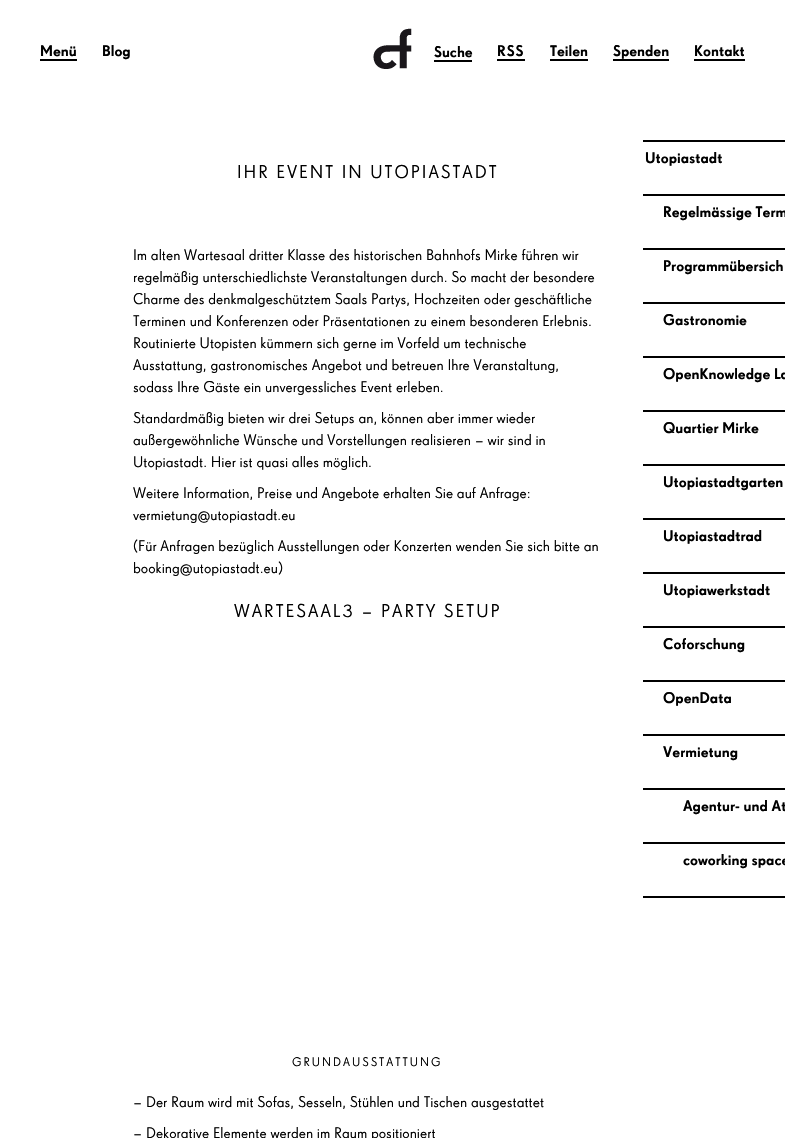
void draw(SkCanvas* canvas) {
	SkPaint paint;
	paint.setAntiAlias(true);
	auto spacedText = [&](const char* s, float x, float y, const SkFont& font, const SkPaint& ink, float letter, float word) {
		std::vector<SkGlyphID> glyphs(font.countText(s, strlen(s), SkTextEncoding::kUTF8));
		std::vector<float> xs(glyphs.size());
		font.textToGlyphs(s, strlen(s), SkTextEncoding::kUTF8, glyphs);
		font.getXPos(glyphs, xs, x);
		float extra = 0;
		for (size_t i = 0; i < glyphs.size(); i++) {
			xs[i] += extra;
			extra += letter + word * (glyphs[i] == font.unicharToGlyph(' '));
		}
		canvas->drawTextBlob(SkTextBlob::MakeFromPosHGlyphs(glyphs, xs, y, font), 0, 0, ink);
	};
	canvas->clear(0xffffffff);
	SkFont f1(fontMgr->matchFamilyStyle("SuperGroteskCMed", SkFontStyle::Normal()), 15);
	f1.setSubpixel(true);
	paint.setColor(0xff000000);
	canvas->drawString("Menü", 40, 56, f1, paint);
	canvas->drawRect(SkRect::MakeXYWH(40, 59, 37, 2), paint);
	canvas->drawString("Blog", 102, 56, f1, paint);
	canvas->drawImageRect(SkImages::DeferredFromEncodedData(SkData::MakeFromFileName("img1.png")), SkRect::MakeXYWH(373, 28, 39, 41), SkSamplingOptions());
	canvas->drawRect(SkRect::MakeXYWH(434, 60, 38, 2), paint);
	canvas->drawString("Suche", 434, 57, f1, paint);
	spacedText("RSS", 497, 56, f1, paint, 1, 0);
	canvas->drawRect(SkRect::MakeXYWH(497, 59, 28, 2), paint);
	canvas->drawString("Teilen", 550, 56, f1, paint);
	canvas->drawRect(SkRect::MakeXYWH(550, 59, 38, 2), paint);
	canvas->drawString("Spenden", 613, 56, f1, paint);
	canvas->drawRect(SkRect::MakeXYWH(613, 59, 56, 2), paint);
	canvas->drawString("Kontakt", 694, 56, f1, paint);
	canvas->drawRect(SkRect::MakeXYWH(694, 59, 51, 2), paint);
	SkFont f2(fontMgr->matchFamilyStyle("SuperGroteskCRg", SkFontStyle::Normal()), 18);
	f2.setSubpixel(true);
	spacedText("IHR EVENT IN UTOPIASTADT", 237, 178, f2, paint, 2, 0);
	SkFont f3(fontMgr->matchFamilyStyle("SuperGroteskCRg", SkFontStyle::Normal()), 15);
	f3.setSubpixel(true);
	canvas->drawString("Im alten Wartesaal dritter Klasse des historischen Bahnhofs Mirke führen wir", 133, 260, f3, paint);
	canvas->drawString("regelmäßig unterschiedlichste Veranstaltungen durch. So macht der besondere", 133, 282, f3, paint);
	canvas->drawString("Charme des denkmalgeschütztem Saals Partys, Hochzeiten oder geschäftliche", 133, 304, f3, paint);
	canvas->drawString("Terminen und Konferenzen oder Präsentationen zu einem besonderen Erlebnis.", 133, 326, f3, paint);
	canvas->drawString("Routinierte Utopisten kümmern sich gerne im Vorfeld um technische", 133, 348, f3, paint);
	canvas->drawString("Ausstattung, gastronomisches Angebot und betreuen Ihre Veranstaltung,", 133, 370, f3, paint);
	canvas->drawString("sodass Ihre Gäste ein unvergessliches Event erleben.", 133, 392, f3, paint);
	canvas->drawString("Standardmäßig bieten wir drei Setups an, können aber immer wieder", 133, 423, f3, paint);
	canvas->drawString("außergewöhnliche Wünsche und Vorstellungen realisieren – wir sind in", 133, 445, f3, paint);
	canvas->drawString("Utopiastadt. Hier ist quasi alles möglich.", 133, 467, f3, paint);
	canvas->drawString("Weitere Information, Preise und Angebote erhalten Sie auf Anfrage:", 133, 498, f3, paint);
	canvas->drawString("vermietung@utopiastadt.eu", 133, 520, f3, paint);
	canvas->drawString("(Für Anfragen bezüglich Ausstellungen oder Konzerten wenden Sie sich bitte an", 133, 551, f3, paint);
	canvas->drawString("booking@utopiastadt.eu)", 133, 573, f3, paint);
	SkFont f4(fontMgr->matchFamilyStyle("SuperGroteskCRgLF", SkFontStyle::Normal()), 18);
	f4.setSubpixel(true);
	spacedText("WARTESAAL3 – PARTY SETUP", 234, 617, f4, paint, 2, 0);
	SkFont f5(fontMgr->matchFamilyStyle("SuperGroteskCRgLF", SkFontStyle::Normal()), 12);
	f5.setSubpixel(true);
	spacedText("GRUNDAUSSTATTUNG", 292, 1066, f5, paint, 2, 0);
	canvas->drawString("– Der Raum wird mit Sofas, Sesseln, Stühlen und Tischen ausgestattet", 133, 1107, f3, paint);
	canvas->drawString("– Dekorative Elemente werden im Raum positioniert", 133, 1138, f3, paint);
	canvas->drawRect(SkRect::MakeXYWH(643, 140, 142, 2), paint);
	canvas->drawRect(SkRect::MakeXYWH(643, 194, 142, 2), paint);
	canvas->drawString("Utopiastadt", 645, 163, f1, paint);
	canvas->drawRect(SkRect::MakeXYWH(643, 248, 142, 2), paint);
	canvas->drawString("Regelmässige Term", 663, 217, f1, paint);
	canvas->drawRect(SkRect::MakeXYWH(643, 302, 142, 2), paint);
	canvas->drawString("Programmübersich", 663, 271, f1, paint);
	canvas->drawRect(SkRect::MakeXYWH(643, 356, 142, 2), paint);
	canvas->drawString("Gastronomie", 663, 325, f1, paint);
	canvas->drawRect(SkRect::MakeXYWH(643, 410, 142, 2), paint);
	canvas->drawString("OpenKnowledge La", 663, 379, f1, paint);
	canvas->drawRect(SkRect::MakeXYWH(643, 464, 142, 2), paint);
	canvas->drawString("Quartier Mirke", 663, 433, f1, paint);
	canvas->drawRect(SkRect::MakeXYWH(643, 518, 142, 2), paint);
	canvas->drawString("Utopiastadtgarten", 663, 487, f1, paint);
	canvas->drawRect(SkRect::MakeXYWH(643, 572, 142, 2), paint);
	canvas->drawString("Utopiastadtrad", 663, 541, f1, paint);
	canvas->drawRect(SkRect::MakeXYWH(643, 626, 142, 2), paint);
	canvas->drawString("Utopiawerkstadt", 663, 595, f1, paint);
	canvas->drawRect(SkRect::MakeXYWH(643, 680, 142, 2), paint);
	canvas->drawString("Coforschung", 663, 649, f1, paint);
	canvas->drawRect(SkRect::MakeXYWH(643, 734, 142, 2), paint);
	canvas->drawString("OpenData", 663, 703, f1, paint);
	canvas->drawRect(SkRect::MakeXYWH(643, 788, 142, 2), paint);
	canvas->drawString("Vermietung", 663, 757, f1, paint);
	canvas->drawRect(SkRect::MakeXYWH(643, 842, 142, 2), paint);
	canvas->drawString("Agentur- und At", 683, 811, f1, paint);
	canvas->drawRect(SkRect::MakeXYWH(643, 896, 142, 2), paint);
	canvas->drawString("coworking space", 683, 865, f1, paint);
}
